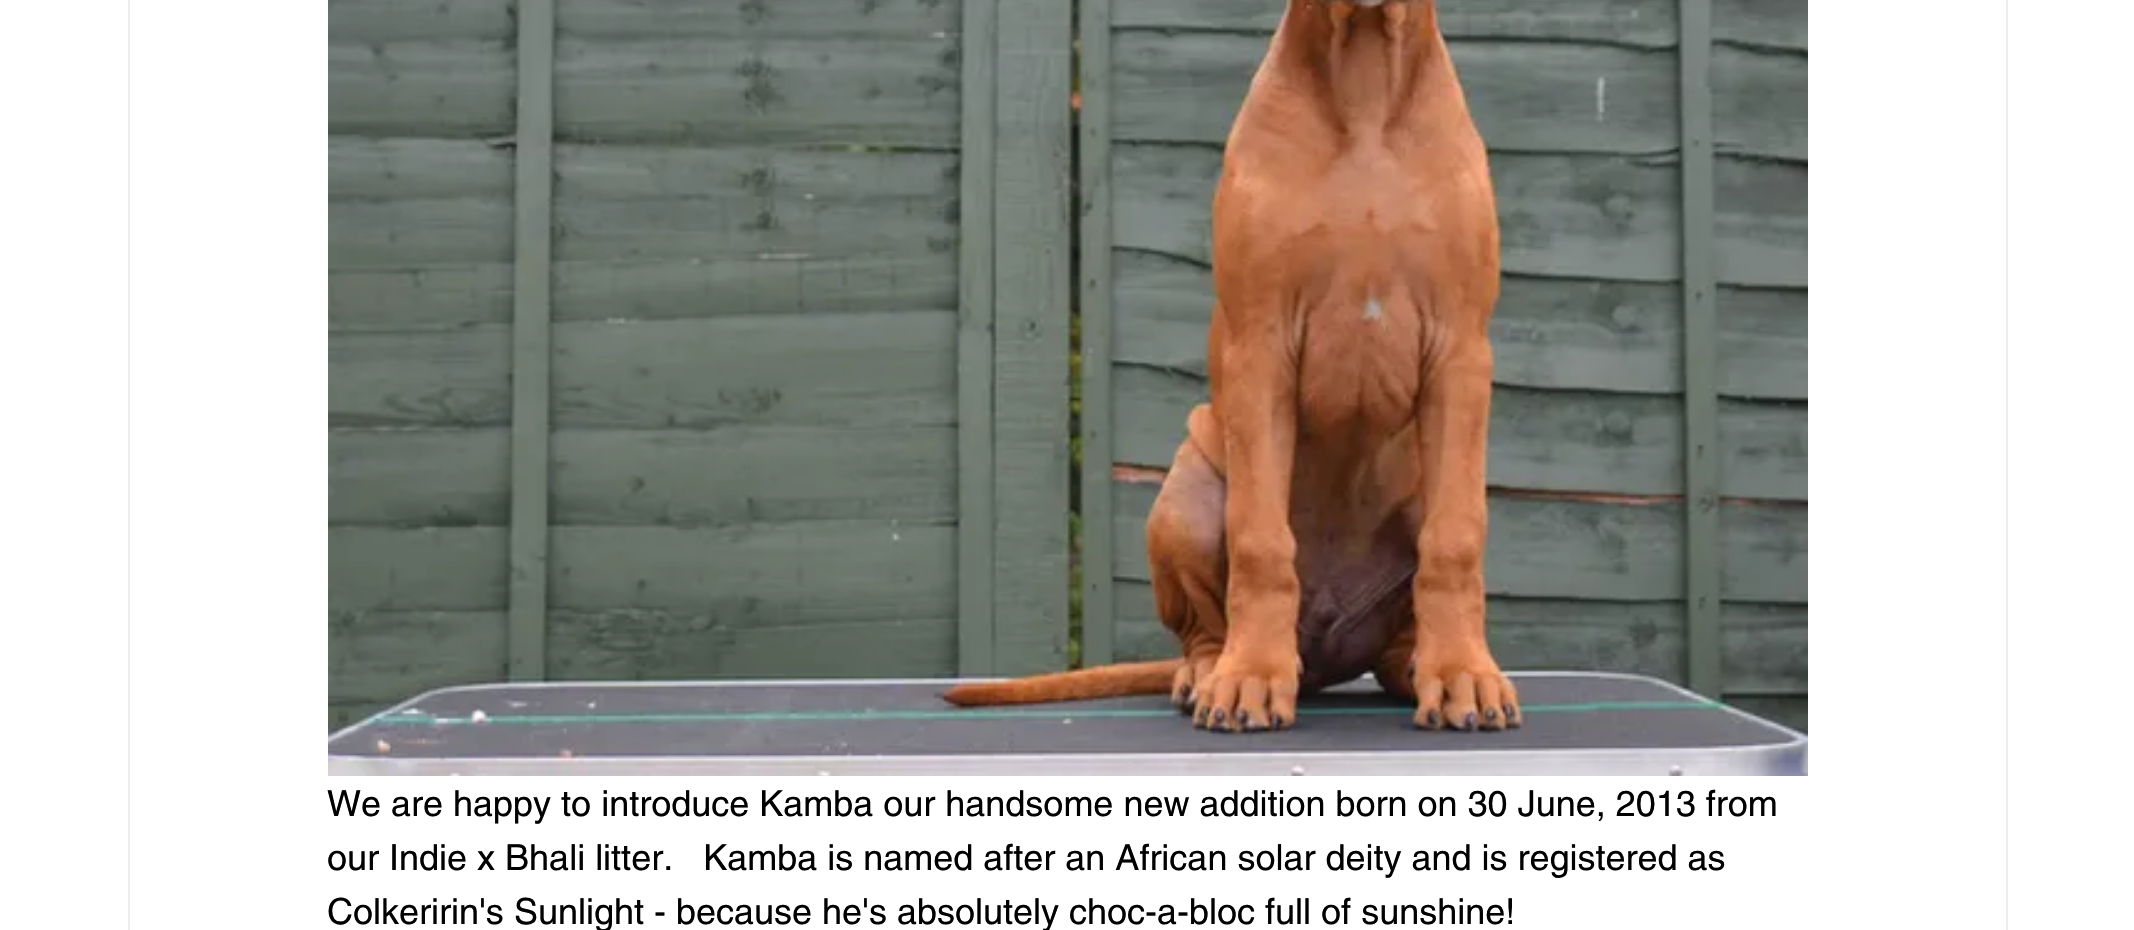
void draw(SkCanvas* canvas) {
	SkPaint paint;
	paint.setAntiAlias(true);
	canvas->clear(0xffffffff);
	paint.setStroke(true);
	paint.setStrokeWidth(2);
	paint.setColor(0xffeeecec);
	canvas->drawRect(SkRect::MakeXYWH(129, -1, 1878, 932), paint);
	canvas->drawImageRect(SkImages::DeferredFromEncodedData(SkData::MakeFromFileName("img1.png")), SkRect::MakeXYWH(328, 0, 1480, 776), SkSamplingOptions());
	SkFont f1(fontMgr->matchFamilyStyle("helvetica", SkFontStyle::Normal()), 36);
	f1.setSubpixel(true);
	paint.setStroke(false);
	paint.setColor(0xff000000);
	canvas->drawString("We are happy to introduce Kamba our handsome new addition born on 30 June, 2013 from", 327, 816, f1, paint);
	canvas->drawString("our Indie x Bhali litter.   Kamba is named after an African solar deity and is registered as", 327, 870, f1, paint);
	canvas->drawString("Colkeririn's Sunlight - because he's absolutely choc-a-bloc full of sunshine!", 327, 924, f1, paint);
}
